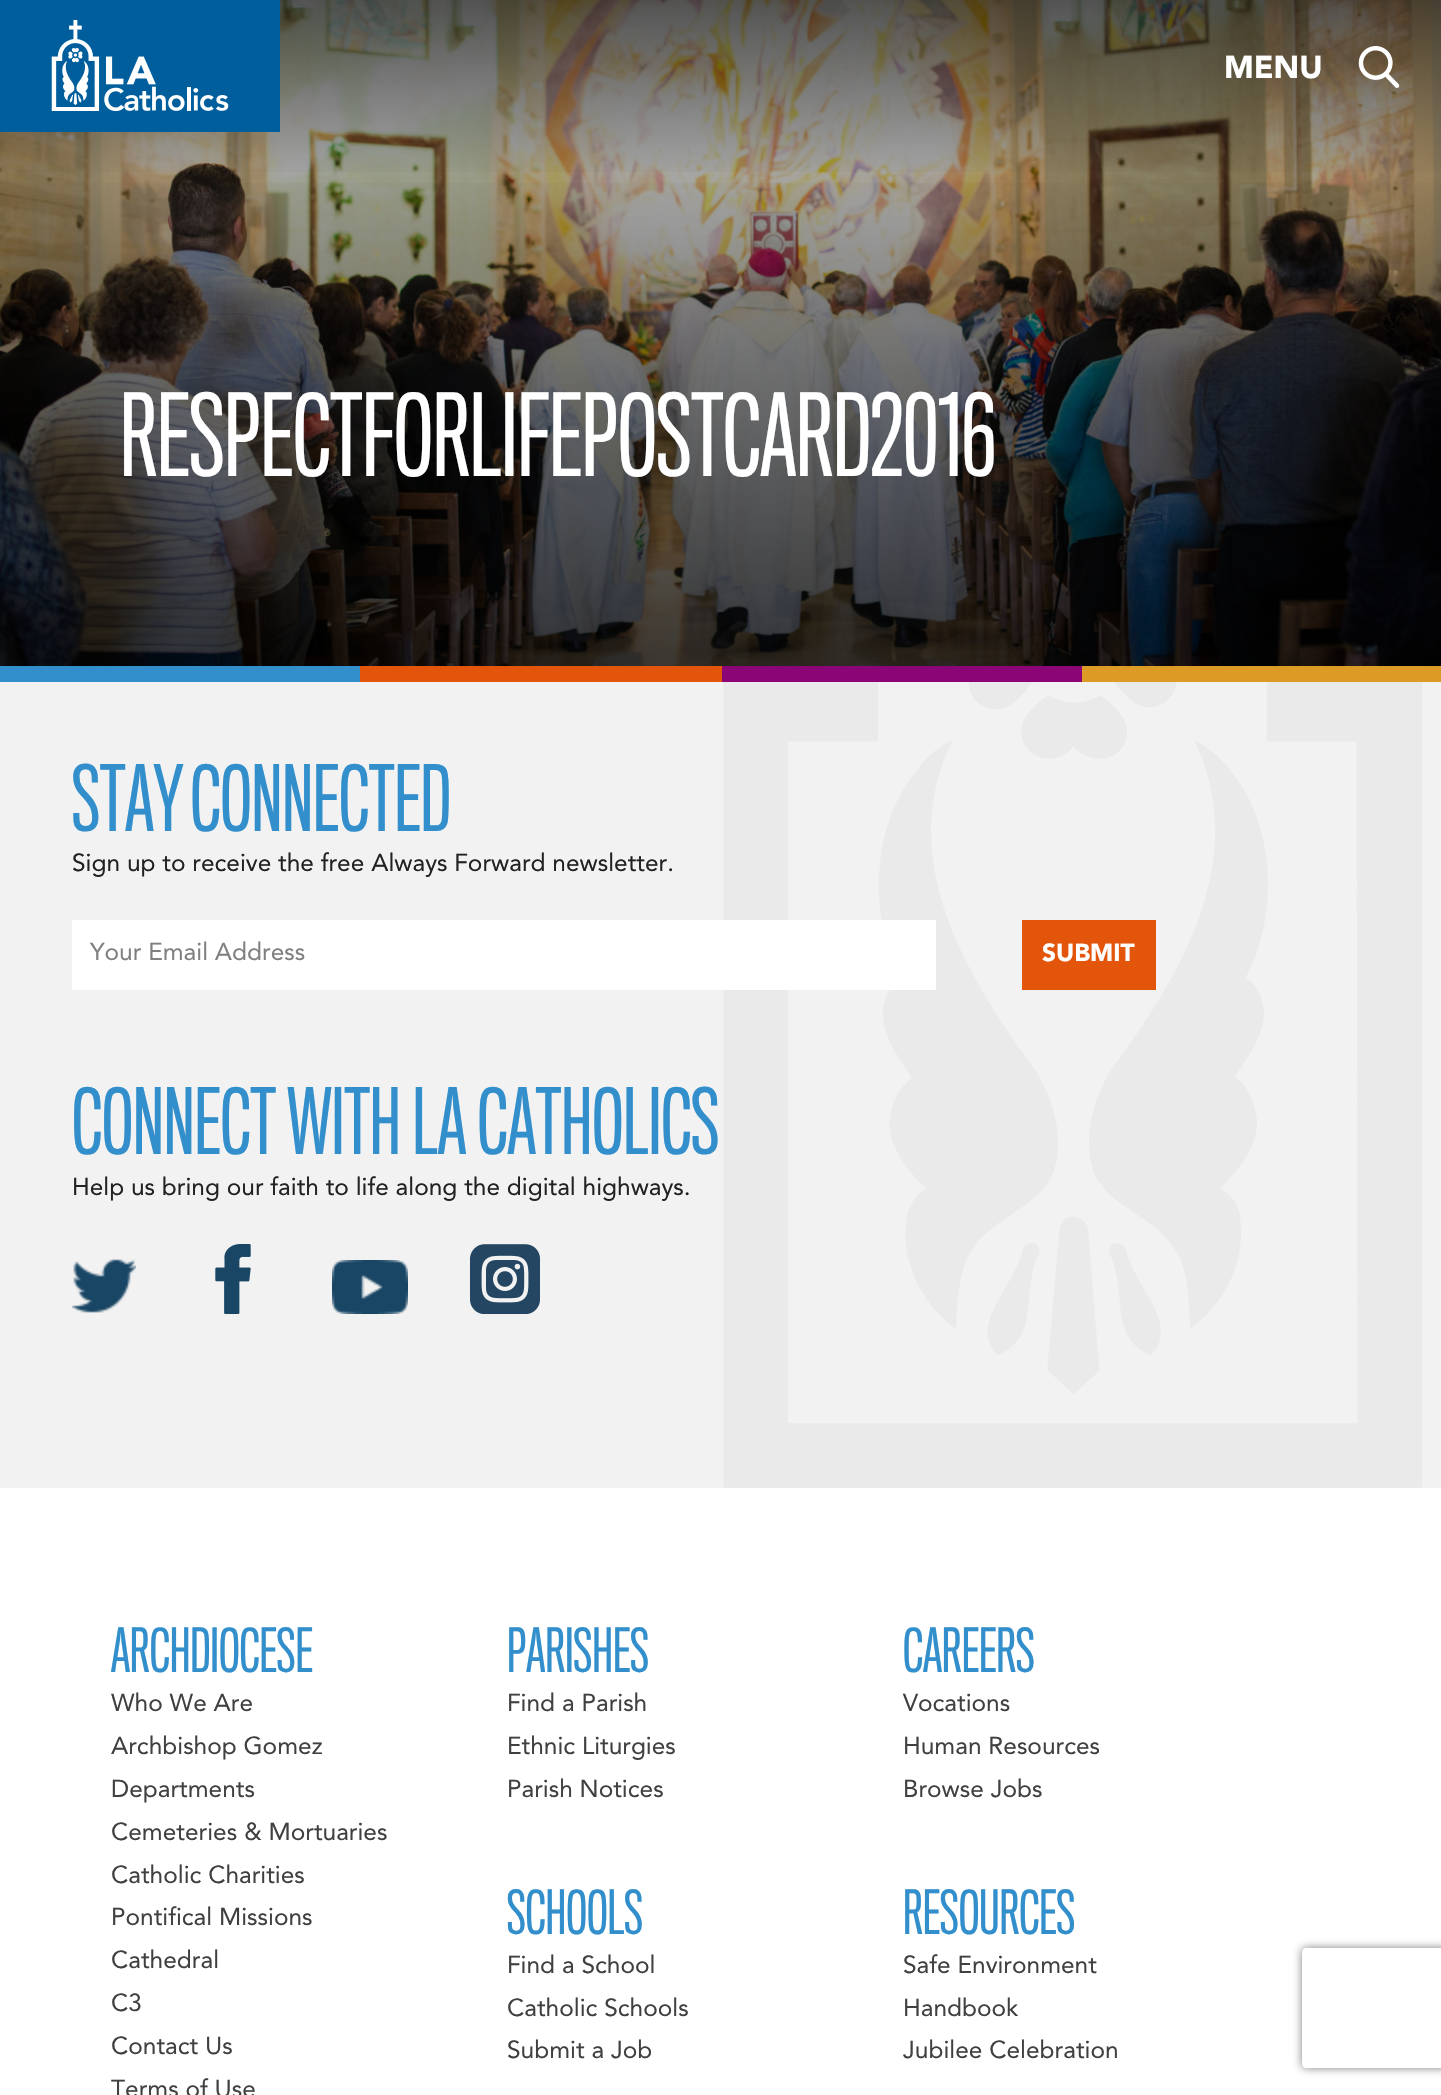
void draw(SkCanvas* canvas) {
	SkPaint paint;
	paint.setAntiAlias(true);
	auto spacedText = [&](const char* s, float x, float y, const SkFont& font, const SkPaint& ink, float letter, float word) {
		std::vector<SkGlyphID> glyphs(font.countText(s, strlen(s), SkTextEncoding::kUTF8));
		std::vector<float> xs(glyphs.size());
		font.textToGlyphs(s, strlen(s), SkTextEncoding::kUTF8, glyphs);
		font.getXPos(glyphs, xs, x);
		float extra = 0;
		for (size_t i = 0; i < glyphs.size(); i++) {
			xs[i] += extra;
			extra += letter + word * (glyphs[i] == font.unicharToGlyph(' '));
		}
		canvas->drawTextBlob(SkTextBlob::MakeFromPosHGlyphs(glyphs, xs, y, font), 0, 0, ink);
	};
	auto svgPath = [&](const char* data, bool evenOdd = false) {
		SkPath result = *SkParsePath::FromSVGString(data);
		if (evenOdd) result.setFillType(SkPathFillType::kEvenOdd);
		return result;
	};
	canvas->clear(0xffffffff);
	paint.setColor(0xff000000);
	canvas->drawRect(SkRect::MakeXYWH(0, 0, 1441, 666), paint);
	canvas->drawImageRect(SkImages::DeferredFromEncodedData(SkData::MakeFromFileName("img3.png")), SkRect::MakeXYWH(0, 0, 1441, 666), SkSamplingOptions());
	{
		const SkColor colors[] = {0x80000000, 0x00000000};
		const float stops[] = {0, 1};
		const SkPoint ends[] = {{721, 0}, {721, 180}};
		paint.setShader(SkGradientShader::MakeLinear(ends, colors, stops, 2, SkTileMode::kClamp));
		paint.setAlpha(255);
	}
	canvas->drawRect(SkRect::MakeXYWH(0, 0, 1441, 172), paint);
	paint.setShader(nullptr);
	paint.setColor(0xff005e9c);
	canvas->drawRect(SkRect::MakeXYWH(0, 0, 280, 132), paint);
	canvas->drawImageRect(SkImages::DeferredFromEncodedData(SkData::MakeFromFileName("img1.png")), SkRect::MakeXYWH(51, 20, 178, 91), SkSamplingOptions());
	SkFont f1(fontMgr->matchFamilyStyle("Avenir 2", SkFontStyle::Normal()), 31.5);
	f1.setSubpixel(true);
	paint.setColor(0xffffffff);
	canvas->drawString("MENU", 1224, 78, f1, paint);
	canvas->drawImageRect(SkImages::DeferredFromEncodedData(SkData::MakeFromFileName("img2.png")), SkRect::MakeXYWH(1358, 46, 42, 42), SkSamplingOptions());
	{
		const SkColor colors[] = {0x00000000, 0xa6000000};
		const float stops[] = {0, 1};
		const SkPoint ends[] = {{721, 166}, {721, 666}};
		paint.setShader(SkGradientShader::MakeLinear(ends, colors, stops, 2, SkTileMode::kClamp));
		paint.setAlpha(255);
	}
	canvas->drawRect(SkRect::MakeXYWH(0, 183, 1441, 483), paint);
	SkFont f2(fontMgr->matchFamilyStyle("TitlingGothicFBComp", SkFontStyle::Normal()), 105);
	f2.setSubpixel(true);
	paint.setShader(nullptr);
	paint.setColor(0xffffffff);
	canvas->drawString("RESPECTFORLIFEPOSTCARD2016", 120, 476, f2, paint);
	paint.setColor(0xff328fcc);
	canvas->drawRect(SkRect::MakeXYWH(0, 666, 360, 16), paint);
	paint.setColor(0xffdb9b24);
	canvas->drawRect(SkRect::MakeXYWH(1082, 666, 359, 16), paint);
	paint.setColor(0xffe3550a);
	canvas->drawRect(SkRect::MakeXYWH(360, 666, 362, 16), paint);
	paint.setColor(0xff8b0577);
	canvas->drawRect(SkRect::MakeXYWH(722, 666, 360, 16), paint);
	paint.setColor(0xfff2f2f2);
	canvas->drawRect(SkRect::MakeXYWH(0, 682, 1441, 806), paint);
	canvas->drawImageRect(SkImages::DeferredFromEncodedData(SkData::MakeFromFileName("img4.png")), SkRect::MakeXYWH(723, 682, 699, 806), SkSamplingOptions());
	SkFont f3(fontMgr->matchFamilyStyle("TitlingGothicFBComp", SkFontStyle::Normal()), 84);
	f3.setSubpixel(true);
	paint.setColor(0xff328fcc);
	spacedText("STAY CONNECTED", 72, 831, f3, paint, 0, -5);
	SkFont f4(fontMgr->matchFamilyStyle("Avenir", SkFontStyle::Normal()), 24.5);
	f4.setSubpixel(true);
	paint.setColor(0xff222222);
	canvas->drawString("Sign up to receive the free Always Forward newsletter.", 72, 871, f4, paint);
	paint.setColor(0xffffffff);
	canvas->drawRect(SkRect::MakeXYWH(72, 920, 864, 70), paint);
	paint.setColor(0xff808080);
	canvas->drawString("Your Email Address", 90, 960, f4, paint);
	canvas->save();
	canvas->clipPath(svgPath("M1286 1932H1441V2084H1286ZM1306 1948H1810C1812 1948 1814 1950 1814 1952V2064C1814 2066 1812 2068 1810 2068H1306C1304 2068 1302 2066 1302 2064V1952C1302 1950 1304 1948 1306 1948Z", true), true);
	paint.setMaskFilter(SkMaskFilter::MakeBlur(kNormal_SkBlurStyle, 5));
	canvas->drawRoundRect(SkRect::MakeXYWH(1302, 1948, 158, 120), 4, 4, paint);
	paint.setMaskFilter(nullptr);
	canvas->restore();
	paint.setColor(0xffe3550a);
	canvas->drawRect(SkRect::MakeXYWH(1022, 920, 134, 70), paint);
	SkFont f5(fontMgr->matchFamilyStyle("Avenir 2", SkFontStyle::Normal()), 24.5);
	f5.setSubpixel(true);
	paint.setColor(0xffffffff);
	canvas->drawString("SUBMIT", 1042, 961, f5, paint);
	paint.setColor(0xff328fcc);
	spacedText("CONNECT WITH LA CATHOLICS", 72, 1154, f3, paint, 0, -0.5);
	paint.setColor(0xff222222);
	canvas->drawString("Help us bring our faith to life along the digital highways.", 72, 1195, f4, paint);
	canvas->drawImageRect(SkImages::DeferredFromEncodedData(SkData::MakeFromFileName("img5.png")), SkRect::MakeXYWH(72, 1259, 64, 54), SkSamplingOptions());
	canvas->drawImageRect(SkImages::DeferredFromEncodedData(SkData::MakeFromFileName("img6.png")), SkRect::MakeXYWH(215, 1244, 36, 70), SkSamplingOptions());
	canvas->drawImageRect(SkImages::DeferredFromEncodedData(SkData::MakeFromFileName("img7.png")), SkRect::MakeXYWH(332, 1260, 76, 54), SkSamplingOptions());
	canvas->drawImageRect(SkImages::DeferredFromEncodedData(SkData::MakeFromFileName("img8.png")), SkRect::MakeXYWH(470, 1244, 70, 70), SkSamplingOptions());
	SkFont f6(fontMgr->matchFamilyStyle("TitlingGothicFBComp", SkFontStyle::Normal()), 56);
	f6.setSubpixel(true);
	paint.setColor(0xff328fcc);
	canvas->drawString("ARCHDIOCESE", 111, 1672, f6, paint);
	paint.setColor(0xff404040);
	canvas->drawString("Who We Are", 111, 1711, f4, paint);
	canvas->drawString("Archbishop Gomez", 111, 1754, f4, paint);
	canvas->drawString("Departments", 111, 1797, f4, paint);
	canvas->drawString("Cemeteries & Mortuaries", 111, 1840, f4, paint);
	canvas->drawString("Catholic Charities", 111, 1883, f4, paint);
	canvas->drawString("Pontifical Missions", 111, 1925, f4, paint);
	canvas->drawString("Cathedral", 111, 1968, f4, paint);
	canvas->drawString("C3", 111, 2011, f4, paint);
	canvas->drawString("Contact Us", 111, 2054, f4, paint);
	canvas->drawString("Terms of Use", 111, 2097, f4, paint);
	paint.setColor(0xff328fcc);
	canvas->drawString("PARISHES", 507, 1672, f6, paint);
	paint.setColor(0xff404040);
	canvas->drawString("Find a Parish", 507, 1711, f4, paint);
	canvas->drawString("Ethnic Liturgies", 507, 1754, f4, paint);
	canvas->drawString("Parish Notices", 507, 1797, f4, paint);
	paint.setColor(0xff328fcc);
	canvas->drawString("SCHOOLS", 507, 1934, f6, paint);
	paint.setColor(0xff404040);
	canvas->drawString("Find a School", 507, 1973, f4, paint);
	canvas->drawString("Catholic Schools", 507, 2016, f4, paint);
	canvas->drawString("Submit a Job", 507, 2058, f4, paint);
	paint.setColor(0xff328fcc);
	canvas->drawString("CAREERS", 903, 1672, f6, paint);
	paint.setColor(0xff404040);
	canvas->drawString("Vocations", 903, 1711, f4, paint);
	canvas->drawString("Human Resources", 903, 1754, f4, paint);
	canvas->drawString("Browse Jobs", 903, 1797, f4, paint);
	paint.setColor(0xff328fcc);
	canvas->drawString("RESOURCES", 903, 1934, f6, paint);
	paint.setColor(0xff404040);
	canvas->drawString("Safe Environment", 903, 1973, f4, paint);
	canvas->drawString("Handbook", 903, 2016, f4, paint);
	canvas->drawString("Jubilee Celebration", 903, 2058, f4, paint);
}
